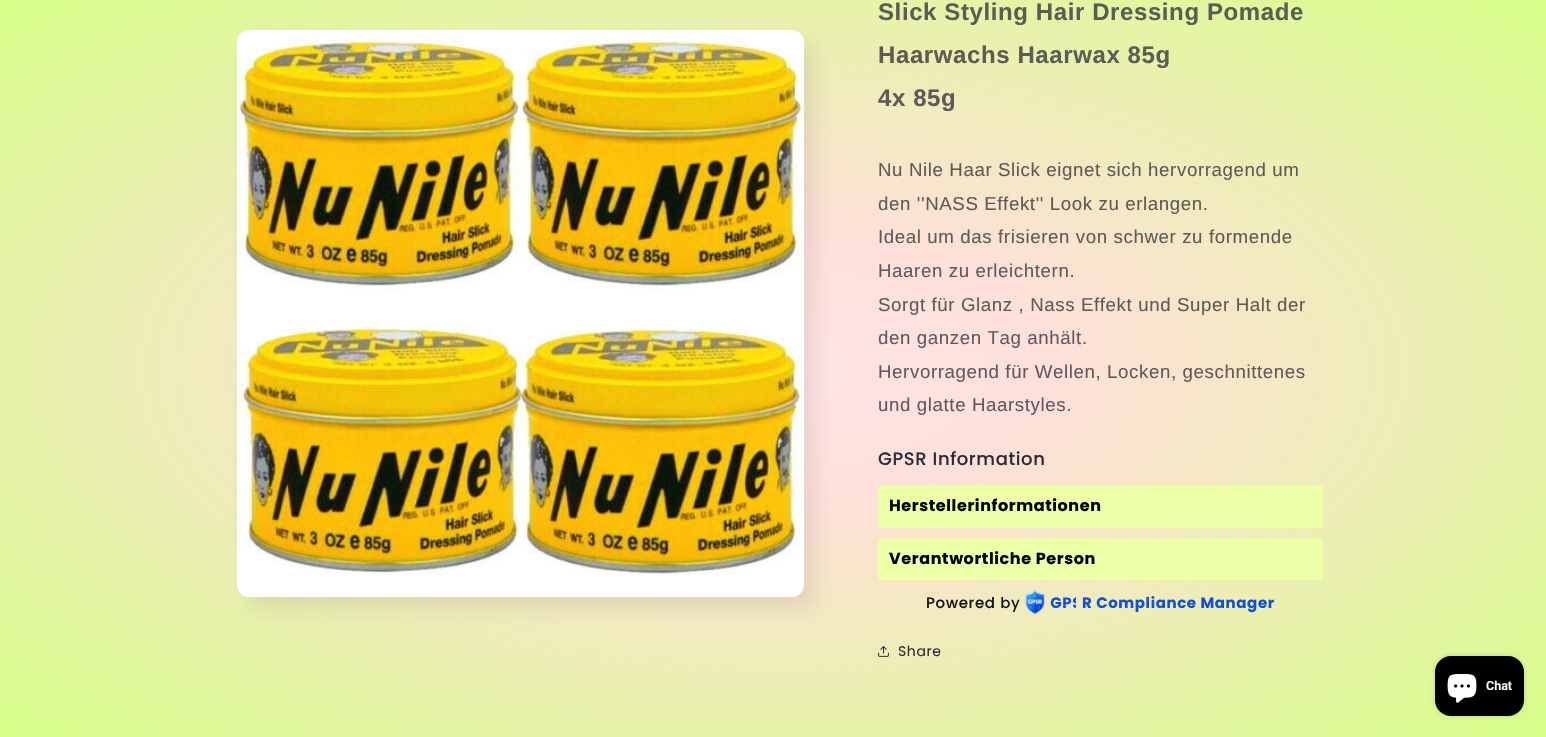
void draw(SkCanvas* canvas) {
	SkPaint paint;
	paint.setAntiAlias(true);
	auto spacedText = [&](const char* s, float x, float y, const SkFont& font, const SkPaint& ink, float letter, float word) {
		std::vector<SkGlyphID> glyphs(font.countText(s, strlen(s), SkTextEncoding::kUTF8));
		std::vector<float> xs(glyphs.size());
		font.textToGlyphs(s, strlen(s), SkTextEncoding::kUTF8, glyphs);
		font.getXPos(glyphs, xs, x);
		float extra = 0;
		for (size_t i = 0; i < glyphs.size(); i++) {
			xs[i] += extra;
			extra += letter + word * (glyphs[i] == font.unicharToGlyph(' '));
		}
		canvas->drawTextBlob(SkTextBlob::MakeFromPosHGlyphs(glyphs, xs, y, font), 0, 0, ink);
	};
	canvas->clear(0xffffffff);
	{
		const SkColor colors[] = {0xffffe5e5, 0xffffe0da, 0xffd7ff89};
		const float stops[] = {0, 0.25, 1};
		SkMatrix m = SkMatrix::Translate(773, 369).preScale(1093, 521);
		paint.setShader(SkGradientShader::MakeRadial({0, 0}, 1, colors, stops, 3, SkTileMode::kClamp, 0, &m));
		paint.setAlpha(255);
	}
	canvas->drawRect(SkRect::MakeXYWH(0, 0, 1546, 697), paint);
	paint.setShader(nullptr);
	paint.setColor(0x1a2e2a39);
	paint.setMaskFilter(SkMaskFilter::MakeBlur(kNormal_SkBlurStyle, 10));
	canvas->drawRoundRect(SkRect::MakeXYWH(247, 42, 567, 567), 12, 12, paint);
	paint.setMaskFilter(nullptr);
	canvas->drawImageRect(SkImages::DeferredFromEncodedData(SkData::MakeFromFileName("img1.png")), SkRect::MakeXYWH(237, 30, 567, 567), SkSamplingOptions());
	SkFont f1(fontMgr->matchFamilyStyle("Liberation Sans", SkFontStyle::Bold()), 24);
	f1.setSubpixel(true);
	paint.setColor(0xff5c5d54);
	spacedText("Slick Styling Hair Dressing Pomade", 878, 20, f1, paint, 0.6, 0);
	spacedText("Haarwachs Haarwax 85g", 878, 63, f1, paint, 0.6, 0);
	paint.setColor(0xff5e5a5a);
	spacedText("4x 85g", 878, 106, f1, paint, 0.6, 0);
	SkFont f2(fontMgr->matchFamilyStyle("Liberation Sans", SkFontStyle::Normal()), 18.7);
	f2.setSubpixel(true);
	spacedText("Nu Nile Haar Slick eignet sich hervorragend um", 878, 176, f2, paint, 0.6, 0);
	spacedText("den ''NASS Effekt'' Look zu erlangen.", 878, 210, f2, paint, 0.6, 0);
	spacedText("Ideal um das frisieren von schwer zu formende", 878, 243, f2, paint, 0.6, 0);
	paint.setColor(0xff625861);
	spacedText("Haaren zu erleichtern.", 878, 277, f2, paint, 0.6, 0);
	paint.setColor(0xff5e5a5a);
	spacedText("Sorgt für Glanz , Nass Effekt und Super Halt der", 878, 311, f2, paint, 0.6, 0);
	paint.setColor(0xff625861);
	spacedText("den ganzen Tag anhält.", 878, 344, f2, paint, 0.6, 0);
	spacedText("Hervorragend für Wellen, Locken, geschnittenes", 878, 378, f2, paint, 0.6, 0);
	spacedText("und glatte Haarstyles.", 878, 411, f2, paint, 0.6, 0);
	SkFont f3(fontMgr->matchFamilyStyle("Poppins", SkFontStyle(500, SkFontStyle::kNormal_Width, SkFontStyle::kUpright_Slant)), 18);
	f3.setSubpixel(true);
	paint.setColor(0xff2e2a39);
	spacedText("GPSR Information", 878, 465, f3, paint, 0.6, 0);
	paint.setColor(0xffedffa7);
	canvas->drawRoundRect(SkRect::MakeXYWH(878.5, 485.5, 444, 42), 1.5, 1.5, paint);
	paint.setStroke(true);
	paint.setStrokeWidth(1);
	canvas->drawRoundRect(SkRect::MakeXYWH(878.5, 485.5, 444, 42), 1.5, 1.5, paint);
	SkFont f4(fontMgr->matchFamilyStyle("Poppins", SkFontStyle::Bold()), 16);
	f4.setSubpixel(true);
	paint.setStroke(false);
	paint.setColor(0xff000000);
	spacedText("Herstellerinformationen", 889, 511, f4, paint, 0.6, 0);
	paint.setColor(0xffedffa7);
	canvas->drawRoundRect(SkRect::MakeXYWH(878.5, 538.5, 444, 41), 1.5, 1.5, paint);
	paint.setStroke(true);
	canvas->drawRoundRect(SkRect::MakeXYWH(878.5, 538.5, 444, 41), 1.5, 1.5, paint);
	paint.setStroke(false);
	paint.setColor(0xff000000);
	spacedText("Verantwortliche Person", 889, 564, f4, paint, 0.6, 0);
	SkFont f5(fontMgr->matchFamilyStyle("Poppins", SkFontStyle(500, SkFontStyle::kNormal_Width, SkFontStyle::kUpright_Slant)), 15);
	f5.setSubpixel(true);
	paint.setColor(0xff141414);
	spacedText("Powered", 926, 608, f5, paint, 0.6, 0);
	canvas->drawImageRect(SkImages::DeferredFromEncodedData(SkData::MakeFromFileName("img2.png")), SkRect::MakeXYWH(1001, 590, 75, 24), SkSamplingOptions());
	SkFont f6(fontMgr->matchFamilyStyle("Poppins", SkFontStyle::Bold()), 15);
	f6.setSubpixel(true);
	paint.setColor(0xff1250dc);
	spacedText("R Compliance Manager", 1082, 608, f6, paint, 0.6, 0);
	canvas->drawImageRect(SkImages::DeferredFromEncodedData(SkData::MakeFromFileName("img3.png")), SkRect::MakeXYWH(878, 646, 11, 11), SkSamplingOptions());
	SkFont f7(fontMgr->matchFamilyStyle("Poppins", SkFontStyle::Normal()), 14);
	f7.setSubpixel(true);
	paint.setColor(0xff2e2a39);
	spacedText("Share", 898, 656, f7, paint, 0.6, 0);
	{
		const SkColor colors[] = {0xffffe5e5, 0xffffe0da, 0xffd7ff89};
		const float stops[] = {0, 0.25, 1};
		SkMatrix m = SkMatrix::Translate(773, 369).preScale(1093, 521);
		paint.setShader(SkGradientShader::MakeRadial({0, 0}, 1, colors, stops, 3, SkTileMode::kClamp, 0, &m));
		paint.setAlpha(255);
	}
	canvas->drawRect(SkRect::MakeXYWH(0, 697, 1546, 32), paint);
	paint.setShader(nullptr);
	paint.setColor(0x26000000);
	paint.setMaskFilter(SkMaskFilter::MakeBlur(kNormal_SkBlurStyle, 2.5));
	canvas->drawRoundRect(SkRect::MakeXYWH(1435, 656, 89, 60), 16, 16, paint);
	paint.setMaskFilter(nullptr);
	paint.setColor(0xff000000);
	canvas->drawRoundRect(SkRect::MakeXYWH(1435, 656, 89, 60), 16, 16, paint);
	canvas->drawImageRect(SkImages::DeferredFromEncodedData(SkData::MakeFromFileName("img4.png")), SkRect::MakeXYWH(1447, 674, 30, 29), SkSamplingOptions());
	SkFont f8(fontMgr->matchFamilyStyle("Roboto", SkFontStyle(600, SkFontStyle::kNormal_Width, SkFontStyle::kUpright_Slant)), 12.5);
	f8.setSubpixel(true);
	paint.setColor(0xffffffff);
	canvas->drawString("Chat", 1486, 690, f8, paint);
	{
		const SkColor colors[] = {0xffffe5e5, 0xffffe0da, 0xffd7ff89};
		const float stops[] = {0, 0.25, 1};
		SkMatrix m = SkMatrix::Translate(773, 369).preScale(1093, 521);
		paint.setShader(SkGradientShader::MakeRadial({0, 0}, 1, colors, stops, 3, SkTileMode::kClamp, 0, &m));
		paint.setAlpha(255);
	}
	canvas->drawRect(SkRect::MakeXYWH(0, 729, 1546, 8), paint);
}
